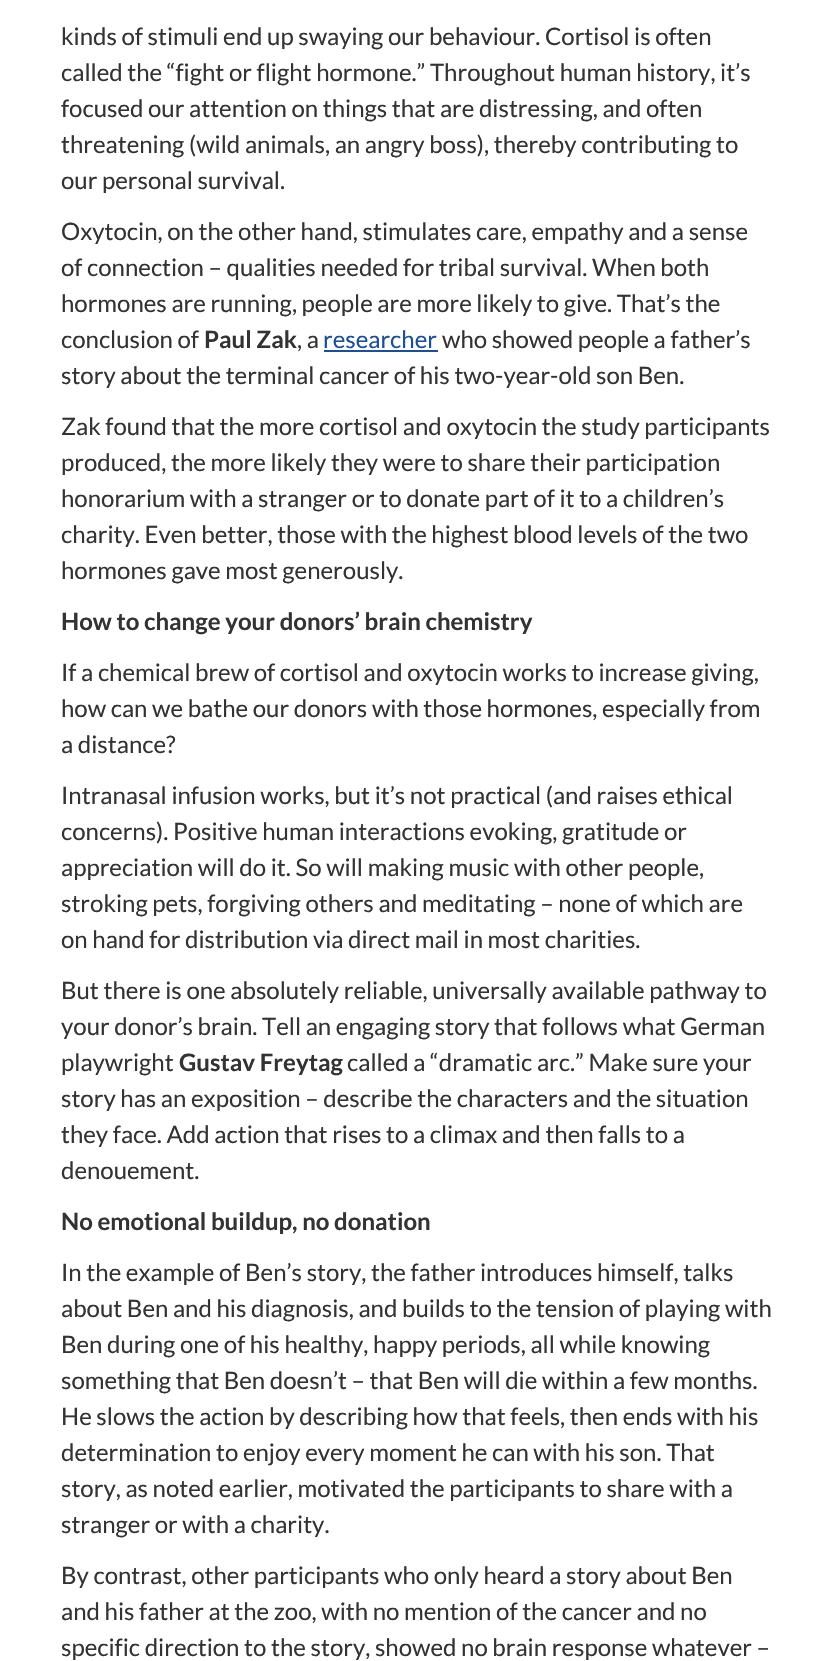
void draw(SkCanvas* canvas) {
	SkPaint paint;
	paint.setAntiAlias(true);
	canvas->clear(0xffffffff);
	SkFont f1(fontMgr->matchFamilyStyle("Lato", SkFontStyle::Normal()), 24);
	f1.setSubpixel(true);
	paint.setColor(0xff333333);
	canvas->drawString("kinds of stimuli end up swaying our behaviour. Cortisol is often", 61, 45, f1, paint);
	canvas->drawString("called the “fight or flight hormone.” Throughout human history, it’s", 61, 81, f1, paint);
	canvas->drawString("focused our attention on things that are distressing, and often", 61, 117, f1, paint);
	canvas->drawString("threatening (wild animals, an angry boss), thereby contributing to", 61, 153, f1, paint);
	canvas->drawString("our personal survival.", 61, 189, f1, paint);
	canvas->drawString("Oxytocin, on the other hand, stimulates care, empathy and a sense", 61, 240, f1, paint);
	canvas->drawString("of connection – qualities needed for tribal survival. When both", 61, 276, f1, paint);
	canvas->drawString("hormones are running, people are more likely to give. That’s the", 61, 312, f1, paint);
	canvas->drawString("conclusion of", 61, 348, f1, paint);
	SkFont f2(fontMgr->matchFamilyStyle("Lato", SkFontStyle::Bold()), 24);
	f2.setSubpixel(true);
	canvas->drawString("Paul Zak", 204, 348, f2, paint);
	canvas->drawString(", a", 297, 348, f1, paint);
	paint.setColor(0xff194f9c);
	canvas->drawString("researcher", 323, 348, f1, paint);
	canvas->drawRect(SkRect::MakeXYWH(324, 350, 114, 2), paint);
	paint.setColor(0xff333333);
	canvas->drawString("who showed people a father’s", 442, 348, f1, paint);
	canvas->drawString("story about the terminal cancer of his two-year-old son Ben.", 61, 384, f1, paint);
	canvas->drawString("Zak found that the more cortisol and oxytocin the study participants", 61, 435, f1, paint);
	canvas->drawString("produced, the more likely they were to share their participation", 61, 471, f1, paint);
	canvas->drawString("honorarium with a stranger or to donate part of it to a children’s", 61, 507, f1, paint);
	canvas->drawString("charity. Even better, those with the highest blood levels of the two", 61, 543, f1, paint);
	canvas->drawString("hormones gave most generously.", 61, 579, f1, paint);
	canvas->drawString("How to change your donors’ brain chemistry", 61, 630, f2, paint);
	canvas->drawString("If a chemical brew of cortisol and oxytocin works to increase giving,", 61, 681, f1, paint);
	canvas->drawString("how can we bathe our donors with those hormones, especially from", 61, 717, f1, paint);
	canvas->drawString("a distance?", 61, 753, f1, paint);
	canvas->drawString("Intranasal infusion works, but it’s not practical (and raises ethical", 61, 804, f1, paint);
	canvas->drawString("concerns). Positive human interactions evoking, gratitude or", 61, 840, f1, paint);
	canvas->drawString("appreciation will do it. So will making music with other people,", 61, 876, f1, paint);
	canvas->drawString("stroking pets, forgiving others and meditating – none of which are", 61, 912, f1, paint);
	canvas->drawString("on hand for distribution via direct mail in most charities.", 61, 948, f1, paint);
	canvas->drawString("But there is one absolutely reliable, universally available pathway to", 61, 999, f1, paint);
	canvas->drawString("your donor’s brain. Tell an engaging story that follows what German", 61, 1035, f1, paint);
	canvas->drawString("playwright", 61, 1071, f1, paint);
	canvas->drawString("Gustav Freytag", 179, 1071, f2, paint);
	canvas->drawString("called a “dramatic arc.” Make sure your", 347, 1071, f1, paint);
	canvas->drawString("story has an exposition – describe the characters and the situation", 61, 1107, f1, paint);
	canvas->drawString("they face. Add action that rises to a climax and then falls to a", 61, 1143, f1, paint);
	canvas->drawString("denouement.", 61, 1179, f1, paint);
	canvas->drawString("No emotional buildup, no donation", 61, 1230, f2, paint);
	canvas->drawString("In the example of Ben’s story, the father introduces himself, talks", 61, 1281, f1, paint);
	canvas->drawString("about Ben and his diagnosis, and builds to the tension of playing with", 61, 1317, f1, paint);
	canvas->drawString("Ben during one of his healthy, happy periods, all while knowing", 61, 1353, f1, paint);
	canvas->drawString("something that Ben doesn’t – that Ben will die within a few months.", 61, 1389, f1, paint);
	canvas->drawString("He slows the action by describing how that feels, then ends with his", 61, 1425, f1, paint);
	canvas->drawString("determination to enjoy every moment he can with his son. That", 61, 1461, f1, paint);
	canvas->drawString("story, as noted earlier, motivated the participants to share with a", 61, 1497, f1, paint);
	canvas->drawString("stranger or with a charity.", 61, 1533, f1, paint);
	canvas->drawString("By contrast, other participants who only heard a story about Ben", 61, 1584, f1, paint);
	canvas->drawString("and his father at the zoo, with no mention of the cancer and no", 61, 1620, f1, paint);
	canvas->drawString("specific direction to the story, showed no brain response whatever –", 61, 1656, f1, paint);
}
